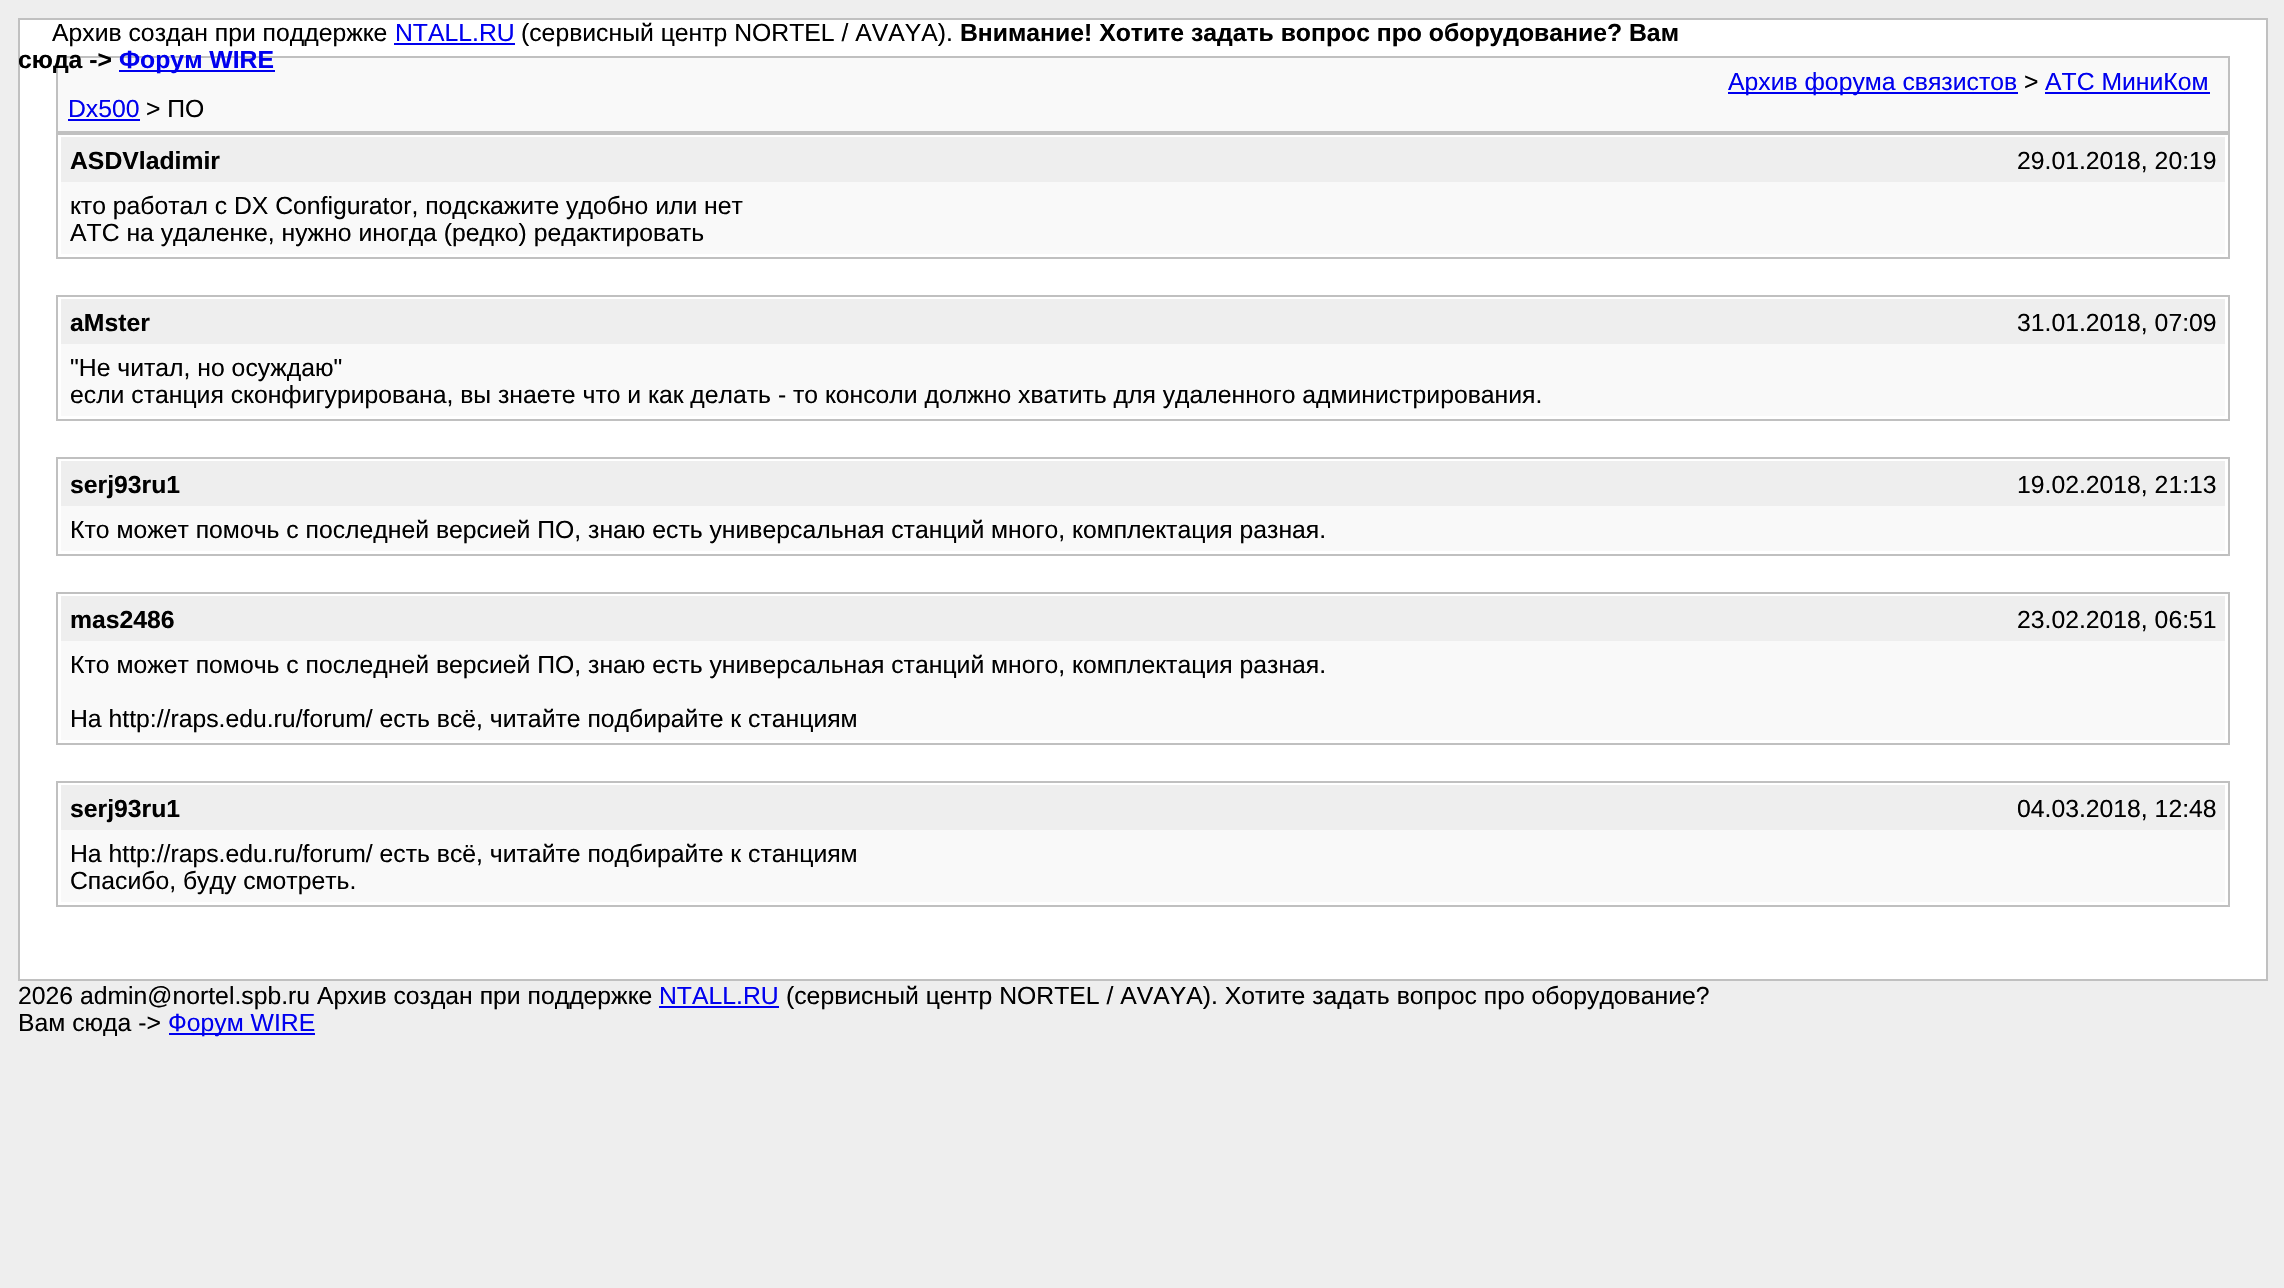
void draw(SkCanvas* canvas) {
	SkPaint paint;
	paint.setAntiAlias(true);
	canvas->clear(0xffeeeeee);
	paint.setColor(0xffffffff);
	canvas->drawRect(SkRect::MakeXYWH(19, 19, 2248, 961), paint);
	paint.setStroke(true);
	paint.setStrokeWidth(2);
	paint.setColor(0xffc0c0c0);
	canvas->drawRect(SkRect::MakeXYWH(19, 19, 2248, 961), paint);
	SkFont f1(fontMgr->matchFamilyStyle("Liberation Sans", SkFontStyle::Normal()), 24.75);
	f1.setSubpixel(true);
	paint.setStroke(false);
	paint.setColor(0xff000000);
	canvas->drawString("Архив создан при поддержке", 52, 41, f1, paint);
	paint.setColor(0xff0000ee);
	canvas->drawString("NTALL.RU", 395, 41, f1, paint);
	canvas->drawRect(SkRect::MakeXYWH(394, 43, 121, 2), paint);
	paint.setColor(0xff000000);
	canvas->drawString("(сервисный центр NORTEL / AVAYA).", 521, 41, f1, paint);
	SkFont f2(fontMgr->matchFamilyStyle("Liberation Sans", SkFontStyle::Bold()), 24.75);
	f2.setSubpixel(true);
	canvas->drawString("Внимание! Хотите задать вопрос про оборудование? Вам", 960, 41, f2, paint);
	paint.setColor(0xfff9f9f9);
	canvas->drawRect(SkRect::MakeXYWH(57, 57, 2172, 75), paint);
	paint.setStroke(true);
	paint.setColor(0xffc0c0c0);
	canvas->drawRect(SkRect::MakeXYWH(57, 57, 2172, 75), paint);
	paint.setStroke(false);
	paint.setColor(0xff000000);
	canvas->drawString("сюда ->", 18, 68, f2, paint);
	paint.setColor(0xff0000ee);
	canvas->drawRect(SkRect::MakeXYWH(119, 70, 156, 2), paint);
	canvas->drawString("Форум WIRE", 119, 68, f2, paint);
	canvas->drawRect(SkRect::MakeXYWH(1728, 92, 290, 2), paint);
	canvas->drawString("Архив форума связистов", 1728, 90, f1, paint);
	paint.setColor(0xff000000);
	canvas->drawString(">", 2024, 90, f1, paint);
	paint.setColor(0xff0000ee);
	canvas->drawString("АТС МиниКом", 2045, 90, f1, paint);
	canvas->drawRect(SkRect::MakeXYWH(2045, 92, 165, 2), paint);
	canvas->drawString("Dx500", 68, 117, f1, paint);
	canvas->drawRect(SkRect::MakeXYWH(68, 119, 72, 2), paint);
	paint.setColor(0xff000000);
	canvas->drawString("> ПО", 146, 117, f1, paint);
	paint.setStroke(true);
	paint.setColor(0xffc0c0c0);
	canvas->drawRect(SkRect::MakeXYWH(57, 134, 2172, 124), paint);
	paint.setStroke(false);
	paint.setColor(0xffeeeeee);
	canvas->drawRect(SkRect::MakeXYWH(61, 137, 2164, 45), paint);
	paint.setColor(0xff000000);
	canvas->drawString("ASDVladimir", 70, 169, f2, paint);
	canvas->drawString("29.01.2018, 20:19", 2017, 169, f1, paint);
	paint.setColor(0xfff9f9f9);
	canvas->drawRect(SkRect::MakeXYWH(61, 182, 2164, 72), paint);
	paint.setColor(0xff000000);
	canvas->drawString("кто работал с DX Configurator, подскажите удобно или нет", 70, 214, f1, paint);
	canvas->drawString("АТС на удаленке, нужно иногда (редко) редактировать", 70, 241, f1, paint);
	paint.setStroke(true);
	paint.setColor(0xffc0c0c0);
	canvas->drawRect(SkRect::MakeXYWH(57, 296, 2172, 124), paint);
	paint.setStroke(false);
	paint.setColor(0xffeeeeee);
	canvas->drawRect(SkRect::MakeXYWH(61, 299, 2164, 45), paint);
	paint.setColor(0xff000000);
	canvas->drawString("aMster", 70, 331, f2, paint);
	canvas->drawString("31.01.2018, 07:09", 2017, 331, f1, paint);
	paint.setColor(0xfff9f9f9);
	canvas->drawRect(SkRect::MakeXYWH(61, 344, 2164, 72), paint);
	paint.setColor(0xff000000);
	canvas->drawString("\"Не читал, но осуждаю\"", 70, 376, f1, paint);
	canvas->drawString("если станция сконфигурирована, вы знаете что и как делать - то консоли должно хватить для удаленного администрирования.", 70, 403, f1, paint);
	paint.setStroke(true);
	paint.setColor(0xffc0c0c0);
	canvas->drawRect(SkRect::MakeXYWH(57, 458, 2172, 97), paint);
	paint.setStroke(false);
	paint.setColor(0xffeeeeee);
	canvas->drawRect(SkRect::MakeXYWH(61, 461, 2164, 45), paint);
	paint.setColor(0xff000000);
	canvas->drawString("serj93ru1", 70, 493, f2, paint);
	canvas->drawString("19.02.2018, 21:13", 2017, 493, f1, paint);
	paint.setColor(0xfff9f9f9);
	canvas->drawRect(SkRect::MakeXYWH(61, 506, 2164, 45), paint);
	paint.setColor(0xff000000);
	canvas->drawString("Кто может помочь с последней версией ПО, знаю есть универсальная станций много, комплектация разная.", 70, 538, f1, paint);
	paint.setStroke(true);
	paint.setColor(0xffc0c0c0);
	canvas->drawRect(SkRect::MakeXYWH(57, 593, 2172, 151), paint);
	paint.setStroke(false);
	paint.setColor(0xffeeeeee);
	canvas->drawRect(SkRect::MakeXYWH(61, 596, 2164, 45), paint);
	paint.setColor(0xff000000);
	canvas->drawString("mas2486", 70, 628, f2, paint);
	canvas->drawString("23.02.2018, 06:51", 2017, 628, f1, paint);
	paint.setColor(0xfff9f9f9);
	canvas->drawRect(SkRect::MakeXYWH(61, 641, 2164, 99), paint);
	paint.setColor(0xff000000);
	canvas->drawString("Кто может помочь с последней версией ПО, знаю есть универсальная станций много, комплектация разная.", 70, 673, f1, paint);
	canvas->drawString("На http://raps.edu.ru/forum/ есть всё, читайте подбирайте к станциям", 70, 727, f1, paint);
	paint.setStroke(true);
	paint.setColor(0xffc0c0c0);
	canvas->drawRect(SkRect::MakeXYWH(57, 782, 2172, 124), paint);
	paint.setStroke(false);
	paint.setColor(0xffeeeeee);
	canvas->drawRect(SkRect::MakeXYWH(61, 785, 2164, 45), paint);
	paint.setColor(0xff000000);
	canvas->drawString("serj93ru1", 70, 817, f2, paint);
	canvas->drawString("04.03.2018, 12:48", 2017, 817, f1, paint);
	paint.setColor(0xfff9f9f9);
	canvas->drawRect(SkRect::MakeXYWH(61, 830, 2164, 72), paint);
	paint.setColor(0xff000000);
	canvas->drawString("На http://raps.edu.ru/forum/ есть всё, читайте подбирайте к станциям", 70, 862, f1, paint);
	canvas->drawString("Спасибо, буду смотреть.", 70, 889, f1, paint);
	canvas->drawString("2026 admin@nortel.spb.ru Архив создан при поддержке", 18, 1004, f1, paint);
	paint.setColor(0xff0000ee);
	canvas->drawString("NTALL.RU", 659, 1004, f1, paint);
	canvas->drawRect(SkRect::MakeXYWH(659, 1006, 120, 2), paint);
	paint.setColor(0xff000000);
	canvas->drawString("(сервисный центр NORTEL / AVAYA). Хотите задать вопрос про оборудование?", 786, 1004, f1, paint);
	canvas->drawString("Вам сюда ->", 18, 1031, f1, paint);
	paint.setColor(0xff0000ee);
	canvas->drawRect(SkRect::MakeXYWH(169, 1033, 146, 2), paint);
	canvas->drawString("Форум WIRE", 168, 1031, f1, paint);
}
